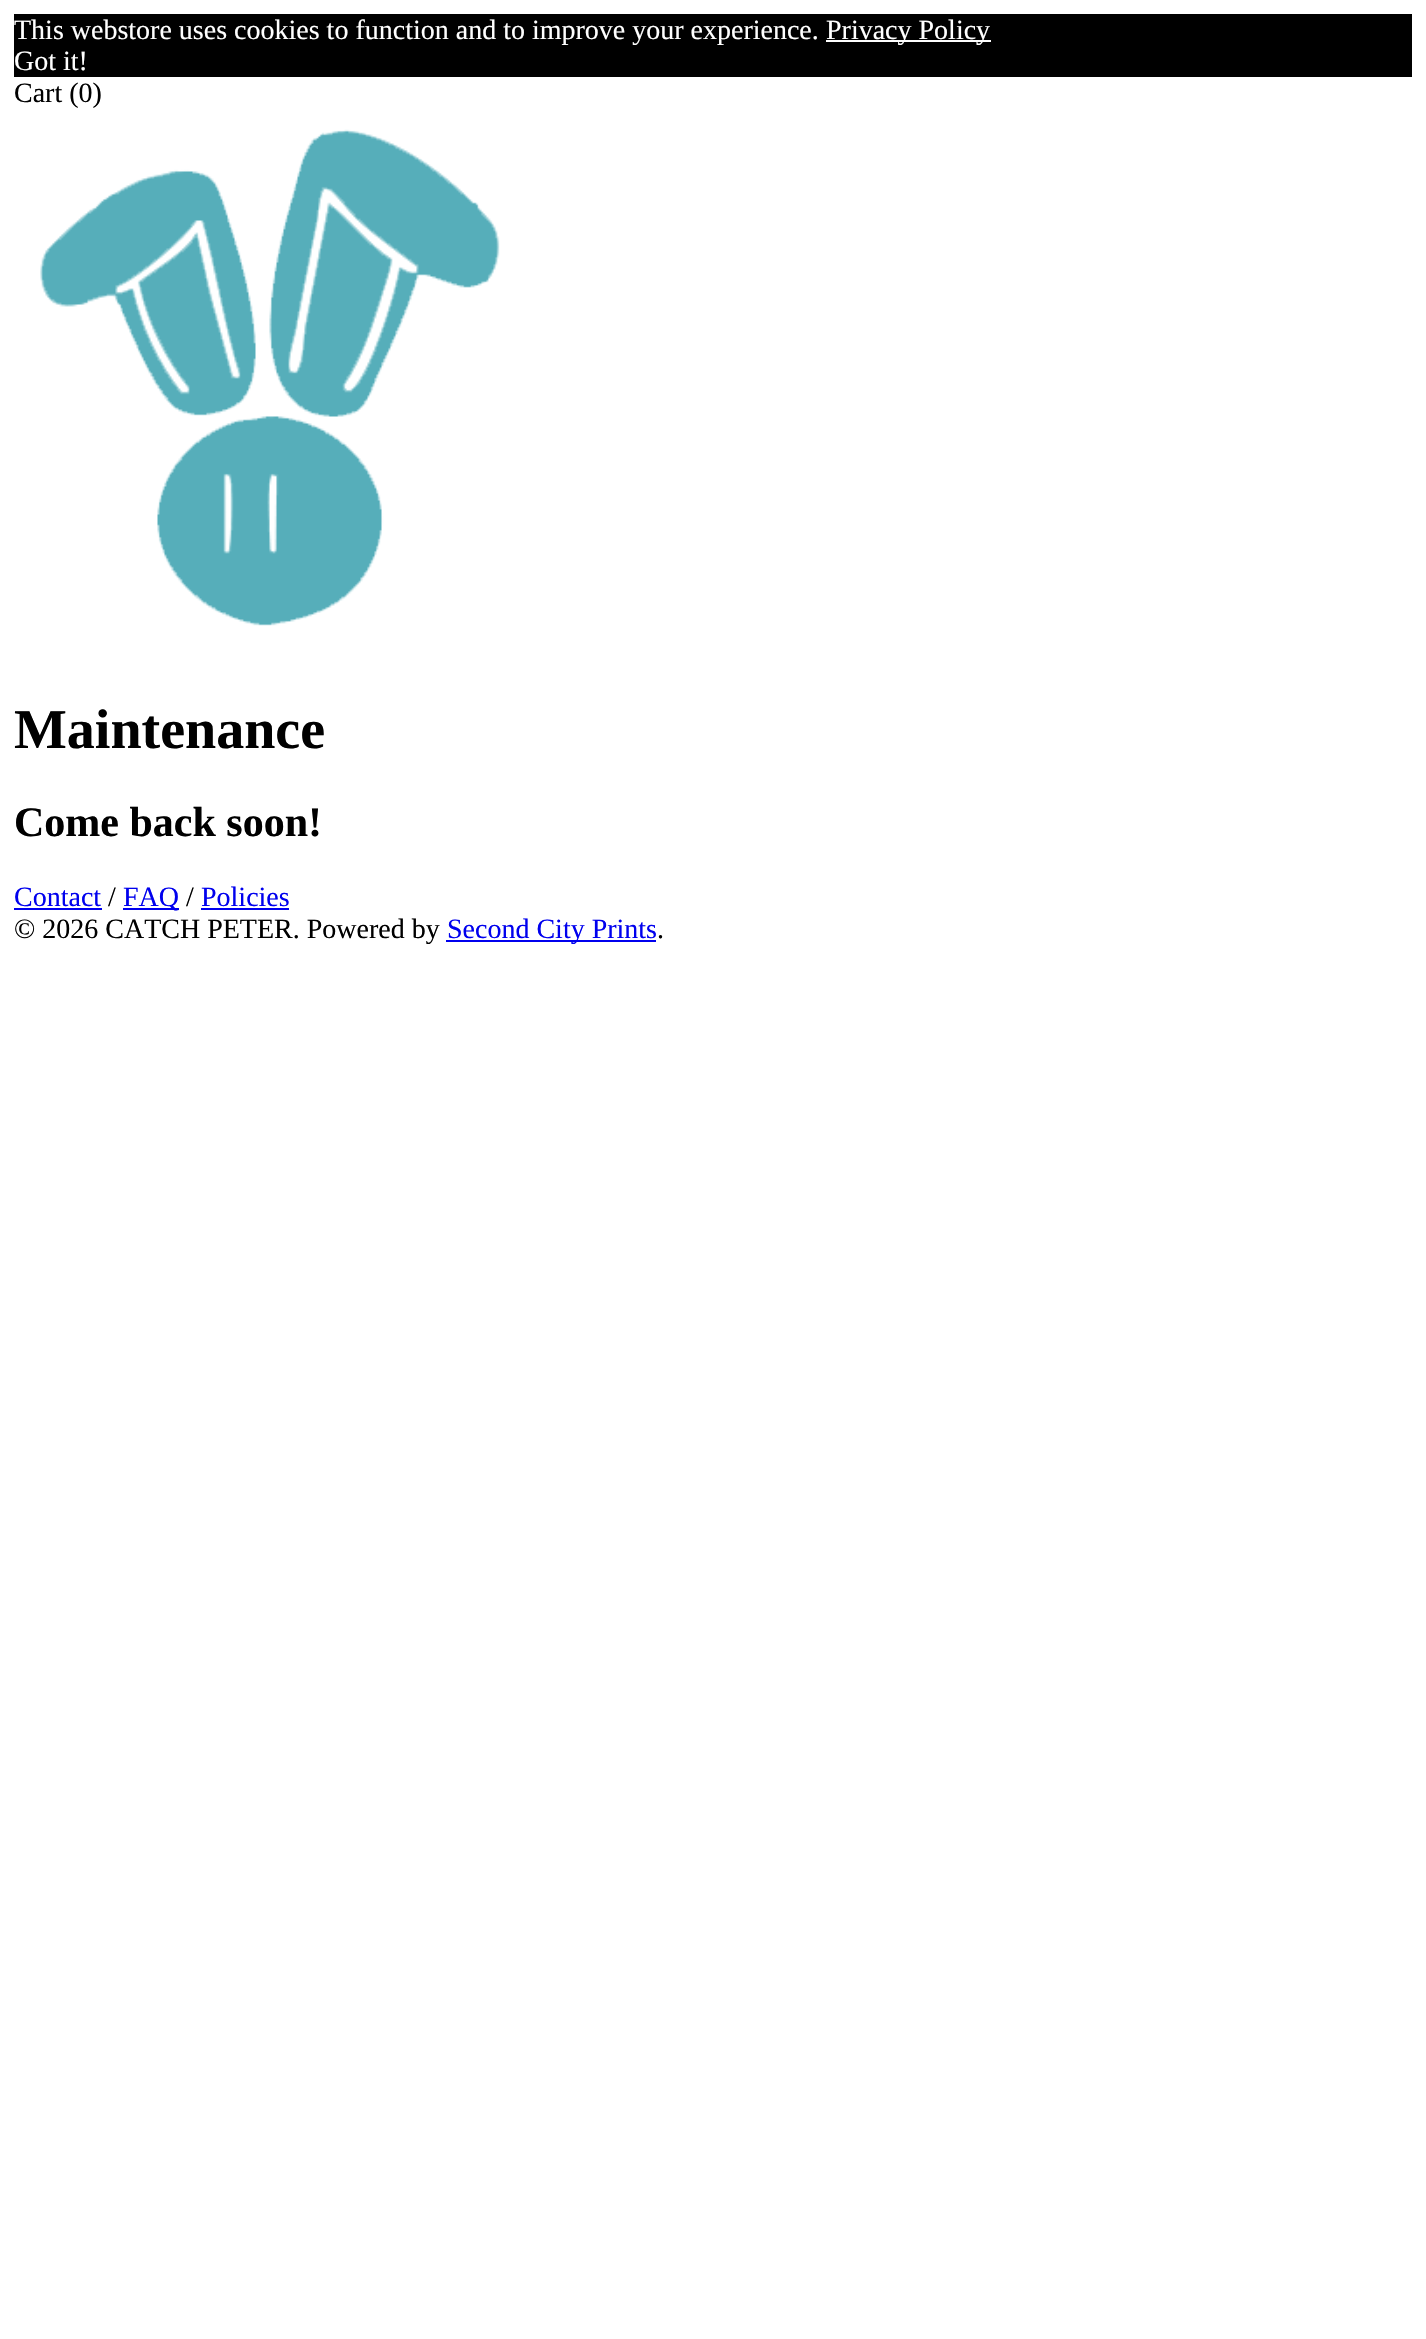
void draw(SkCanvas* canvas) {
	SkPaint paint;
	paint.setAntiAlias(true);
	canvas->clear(0xffffffff);
	paint.setColor(0xff000000);
	canvas->drawRect(SkRect::MakeXYWH(14, 14, 1398, 63), paint);
	SkFont f1(fontMgr->matchFamilyStyle("Liberation Serif", SkFontStyle::Normal()), 28);
	f1.setSubpixel(true);
	paint.setColor(0xffffffff);
	canvas->drawString("This webstore uses cookies to function and to improve your experience.", 14, 39, f1, paint);
	canvas->drawRect(SkRect::MakeXYWH(826, 40, 165, 2), paint);
	canvas->drawString("Privacy Policy", 826, 39, f1, paint);
	canvas->drawString("Got it!", 14, 70, f1, paint);
	paint.setColor(0xff000000);
	canvas->drawString("Cart (0)", 14, 102, f1, paint);
	canvas->drawImageRect(SkImages::DeferredFromEncodedData(SkData::MakeFromFileName("img1.png")), SkRect::MakeXYWH(40, 129, 460, 497), SkSamplingOptions());
	SkFont f2(fontMgr->matchFamilyStyle("Liberation Serif", SkFontStyle::Bold()), 56);
	f2.setSubpixel(true);
	canvas->drawString("Maintenance", 14, 748, f2, paint);
	SkFont f3(fontMgr->matchFamilyStyle("Liberation Serif", SkFontStyle::Bold()), 42);
	f3.setSubpixel(true);
	canvas->drawString("Come back soon!", 14, 836, f3, paint);
	paint.setColor(0xff0000ee);
	canvas->drawString("Contact", 14, 906, f1, paint);
	canvas->drawRect(SkRect::MakeXYWH(14, 908, 88, 2), paint);
	paint.setColor(0xff000000);
	canvas->drawString("/", 108, 906, f1, paint);
	paint.setColor(0xff0000ee);
	canvas->drawRect(SkRect::MakeXYWH(123, 908, 56, 2), paint);
	canvas->drawString("FAQ", 123, 906, f1, paint);
	paint.setColor(0xff000000);
	canvas->drawString("/", 186, 906, f1, paint);
	paint.setColor(0xff0000ee);
	canvas->drawString("Policies", 201, 906, f1, paint);
	canvas->drawRect(SkRect::MakeXYWH(201, 908, 88, 2), paint);
	paint.setColor(0xff000000);
	canvas->drawString("© 2026 CATCH PETER. Powered by", 14, 938, f1, paint);
	paint.setColor(0xff0000ee);
	canvas->drawRect(SkRect::MakeXYWH(446, 940, 210, 2), paint);
	canvas->drawString("Second City Prints", 447, 938, f1, paint);
	paint.setColor(0xff000000);
	canvas->drawString(".", 657, 938, f1, paint);
}
